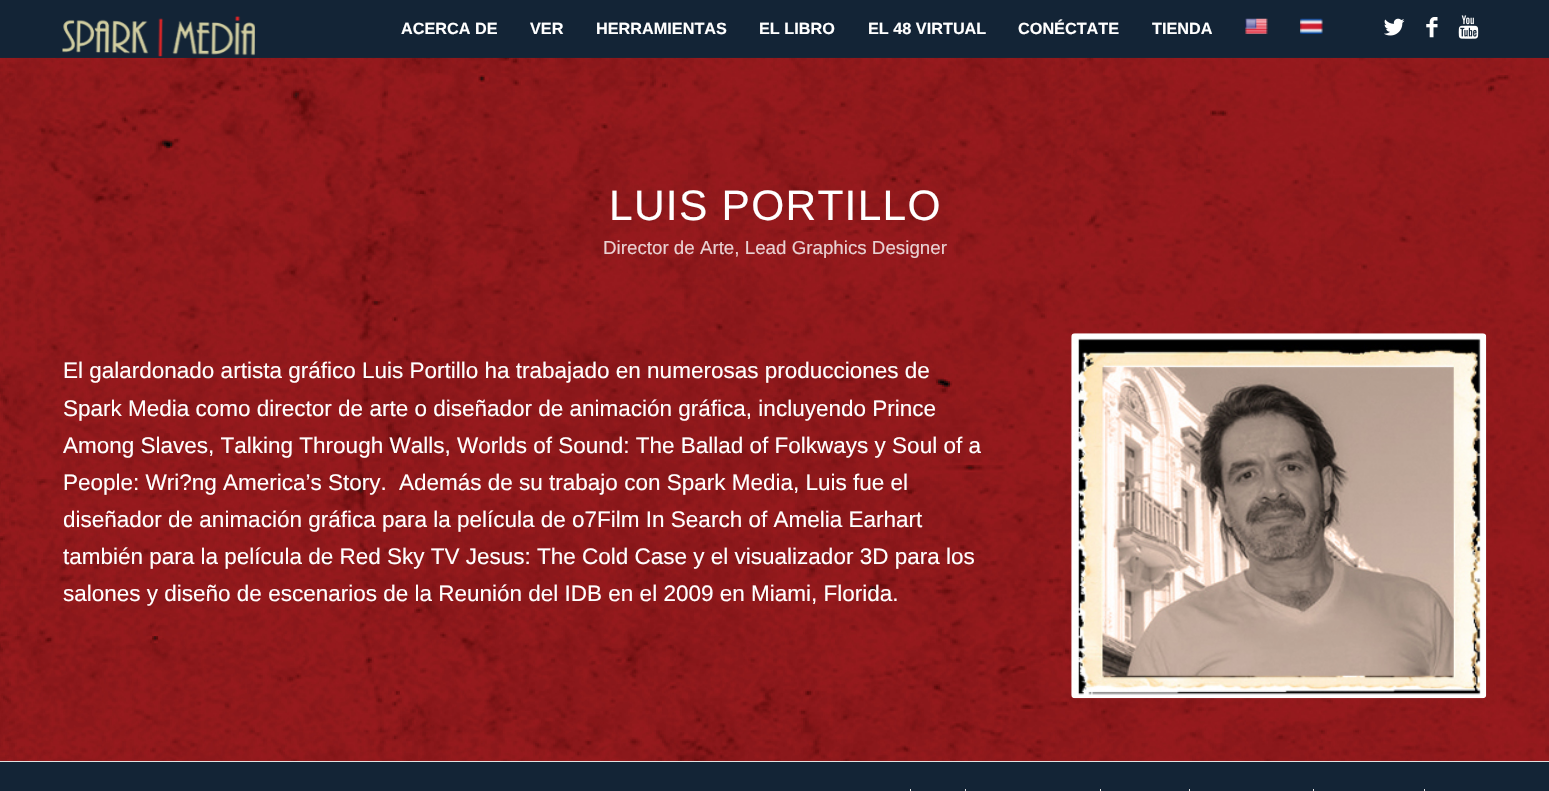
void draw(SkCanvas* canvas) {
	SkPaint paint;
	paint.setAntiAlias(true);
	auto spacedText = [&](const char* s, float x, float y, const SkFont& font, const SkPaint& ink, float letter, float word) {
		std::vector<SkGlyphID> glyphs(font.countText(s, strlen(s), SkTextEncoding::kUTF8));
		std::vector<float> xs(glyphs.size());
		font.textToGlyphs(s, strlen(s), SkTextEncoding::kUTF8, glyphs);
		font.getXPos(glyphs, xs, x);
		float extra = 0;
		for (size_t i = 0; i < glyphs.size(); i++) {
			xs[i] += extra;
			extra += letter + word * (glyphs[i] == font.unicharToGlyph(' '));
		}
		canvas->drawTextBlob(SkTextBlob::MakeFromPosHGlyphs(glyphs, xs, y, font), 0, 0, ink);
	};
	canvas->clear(0xff132436);
	canvas->drawImageRect(SkImages::DeferredFromEncodedData(SkData::MakeFromFileName("img1.png")), SkRect::MakeXYWH(62, 16, 193, 41), SkSamplingOptions());
	SkFont f1(fontMgr->matchFamilyStyle("Liberation Sans", SkFontStyle::Bold()), 16.25);
	f1.setSubpixel(true);
	paint.setColor(0xffffffff);
	canvas->drawString("ACERCA DE", 401, 34, f1, paint);
	canvas->drawString("VER", 530, 34, f1, paint);
	canvas->drawString("HERRAMIENTAS", 596, 34, f1, paint);
	canvas->drawString("EL LIBRO", 759, 34, f1, paint);
	canvas->drawString("EL 48 VIRTUAL", 868, 34, f1, paint);
	canvas->drawString("CONÉCTATE", 1018, 34, f1, paint);
	canvas->drawString("TIENDA", 1152, 34, f1, paint);
	canvas->drawImageRect(SkImages::DeferredFromEncodedData(SkData::MakeFromFileName("img2.png")), SkRect::MakeXYWH(1245, 18, 23, 16), SkSamplingOptions());
	canvas->drawImageRect(SkImages::DeferredFromEncodedData(SkData::MakeFromFileName("img3.png")), SkRect::MakeXYWH(1300, 18, 23, 16), SkSamplingOptions());
	canvas->drawImageRect(SkImages::DeferredFromEncodedData(SkData::MakeFromFileName("img4.png")), SkRect::MakeXYWH(1384, 18, 21, 18), SkSamplingOptions());
	canvas->drawImageRect(SkImages::DeferredFromEncodedData(SkData::MakeFromFileName("img5.png")), SkRect::MakeXYWH(1426, 17, 12, 21), SkSamplingOptions());
	canvas->drawImageRect(SkImages::DeferredFromEncodedData(SkData::MakeFromFileName("img6.png")), SkRect::MakeXYWH(1458, 15, 21, 24), SkSamplingOptions());
	canvas->drawImageRect(SkImages::DeferredFromEncodedData(SkData::MakeFromFileName("img7.png")), SkRect::MakeXYWH(0, 57, 1549, 704), SkSamplingOptions());
	paint.setColor(0xf2132436);
	canvas->drawRect(SkRect::MakeXYWH(0, 57, 1549, 1), paint);
	SkFont f2(fontMgr->matchFamilyStyle("Liberation Sans", SkFontStyle::Normal()), 42.5);
	f2.setSubpixel(true);
	paint.setColor(0xffffffff);
	spacedText("LUIS PORTILLO", 609, 220, f2, paint, 1.25, 0);
	SkFont f3(fontMgr->matchFamilyStyle("Liberation Sans", SkFontStyle::Normal()), 18.75);
	f3.setSubpixel(true);
	paint.setColor(0xffe9d1d2);
	canvas->drawString("Director de Arte, Lead Graphics Designer", 603, 254, f3, paint);
	SkFont f4(fontMgr->matchFamilyStyle("Liberation Sans", SkFontStyle::Normal()), 22.5);
	f4.setSubpixel(true);
	paint.setColor(0xffffffff);
	canvas->drawString("El galardonado artista gráfico Luis Portillo ha trabajado en numerosas producciones de", 63, 378, f4, paint);
	canvas->drawString("Spark Media como director de arte o diseñador de animación gráfica, incluyendo Prince", 63, 416, f4, paint);
	canvas->drawString("Among Slaves, Talking Through Walls, Worlds of Sound: The Ballad of Folkways y Soul of a", 63, 453, f4, paint);
	canvas->drawString("People: Wri?ng America’s Story.", 63, 490, f4, paint);
	canvas->drawString("Además de su trabajo con Spark Media, Luis fue el", 399, 490, f4, paint);
	canvas->drawString("diseñador de animación gráfica para la película de o7Film In Search of Amelia Earhart", 63, 527, f4, paint);
	canvas->drawString("también para la película de Red Sky TV Jesus: The Cold Case y el visualizador 3D para los", 63, 564, f4, paint);
	canvas->drawString("salones y diseño de escenarios de la Reunión del IDB en el 2009 en Miami, Florida.", 63, 601, f4, paint);
	canvas->drawImageRect(SkImages::DeferredFromEncodedData(SkData::MakeFromFileName("img8.png")), SkRect::MakeXYWH(1071, 333, 416, 366), SkSamplingOptions());
	paint.setColor(0xffe1e1e1);
	canvas->drawRect(SkRect::MakeXYWH(0, 761, 1549, 1), paint);
	canvas->drawRect(SkRect::MakeXYWH(910, 789, 1, 2), paint);
	canvas->drawRect(SkRect::MakeXYWH(965, 789, 1, 2), paint);
	canvas->drawRect(SkRect::MakeXYWH(1100, 789, 1, 2), paint);
	canvas->drawRect(SkRect::MakeXYWH(1189, 789, 1, 2), paint);
	canvas->drawRect(SkRect::MakeXYWH(1313, 789, 1, 2), paint);
	canvas->drawRect(SkRect::MakeXYWH(1424, 789, 1, 2), paint);
}
